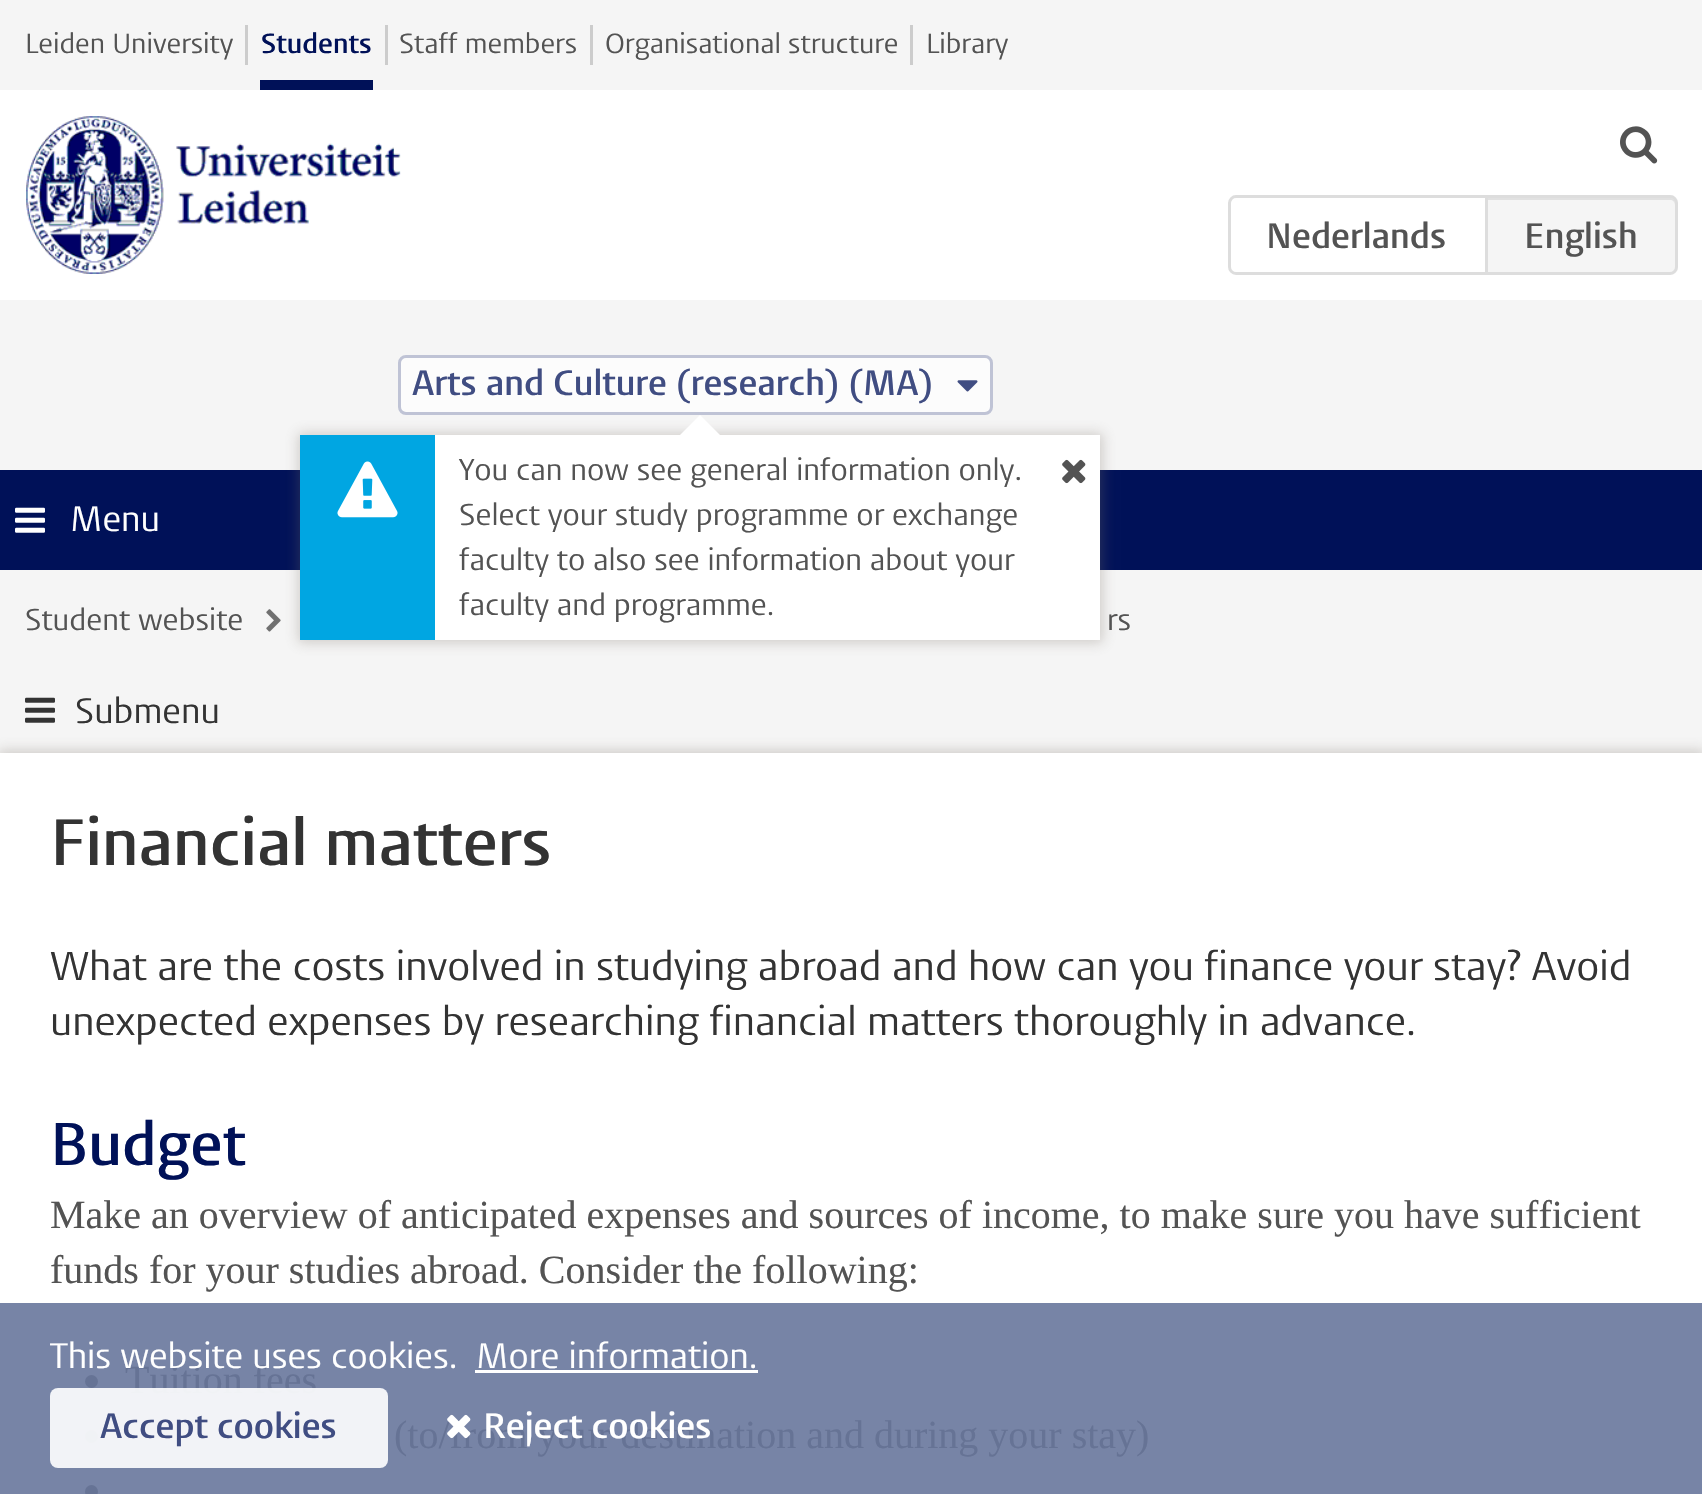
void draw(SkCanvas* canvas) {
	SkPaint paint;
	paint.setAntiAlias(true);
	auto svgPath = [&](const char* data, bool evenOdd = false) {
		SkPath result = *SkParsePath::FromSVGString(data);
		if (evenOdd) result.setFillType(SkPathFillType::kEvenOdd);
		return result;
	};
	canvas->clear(0xfff5f5f5);
	paint.setColor(0xffffffff);
	canvas->drawRect(SkRect::MakeXYWH(0, 90, 1702, 210), paint);
	paint.setColor(0xffcccccc);
	canvas->drawRect(SkRect::MakeXYWH(245, 25, 3, 40), paint);
	SkFont f1(fontMgr->matchFamilyStyle("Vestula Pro", SkFontStyle::Normal()), 27.5);
	f1.setSubpixel(true);
	paint.setColor(0xff535353);
	canvas->drawString("Leiden University", 25, 53, f1, paint);
	paint.setColor(0xffcccccc);
	canvas->drawRect(SkRect::MakeXYWH(385, 25, 3, 40), paint);
	SkFont f2(fontMgr->matchFamilyStyle("Vestula Pro", SkFontStyle(600, SkFontStyle::kNormal_Width, SkFontStyle::kUpright_Slant)), 27.5);
	f2.setSubpixel(true);
	paint.setColor(0xff001158);
	canvas->drawString("Students", 261, 53, f2, paint);
	canvas->drawRect(SkRect::MakeXYWH(260, 80, 113, 10), paint);
	paint.setColor(0xffcccccc);
	canvas->drawRect(SkRect::MakeXYWH(590, 25, 3, 40), paint);
	paint.setColor(0xff535353);
	canvas->drawString("Staff members", 399, 53, f1, paint);
	paint.setColor(0xffcccccc);
	canvas->drawRect(SkRect::MakeXYWH(910, 25, 3, 40), paint);
	paint.setColor(0xff535353);
	canvas->drawString("Organisational structure", 605, 53, f1, paint);
	canvas->drawString("Library", 926, 53, f1, paint);
	canvas->drawImageRect(SkImages::DeferredFromEncodedData(SkData::MakeFromFileName("img1.png")), SkRect::MakeXYWH(26, 116, 375, 158), SkSamplingOptions());
	canvas->drawImageRect(SkImages::DeferredFromEncodedData(SkData::MakeFromFileName("img2.png")), SkRect::MakeXYWH(1620, 126, 38, 38), SkSamplingOptions());
	paint.setStroke(true);
	paint.setStrokeWidth(3);
	paint.setColor(0xffdddddd);
	canvas->drawPath(svgPath("M1236 196.5H1486.5V273.5H1236C1232.5 273.5 1229.5 270.5 1229.5 267V203C1229.5 199.5 1232.5 196.5 1236 196.5Z"), paint);
	SkFont f3(fontMgr->matchFamilyStyle("Vestula Pro", SkFontStyle(600, SkFontStyle::kNormal_Width, SkFontStyle::kUpright_Slant)), 35);
	f3.setSubpixel(true);
	paint.setStroke(false);
	paint.setColor(0xff535353);
	canvas->drawString("Nederlands", 1266, 248, f3, paint);
	paint.setColor(0xfff5f5f5);
	canvas->drawPath(svgPath("M1485 195H1670C1674.5 195 1678 198.5 1678 203V267C1678 271.5 1674.5 275 1670 275H1485Z"), paint);
	paint.setColor(0xffe1e1e1);
	canvas->drawPath(svgPath("M1488 200H1670C1673 200 1675 202 1675 205V203C1675 200 1673 198 1670 198H1488Z"), paint);
	paint.setStroke(true);
	paint.setColor(0xffdddddd);
	canvas->drawPath(svgPath("M1486.5 196.5H1670C1673.5 196.5 1676.5 199.5 1676.5 203V267C1676.5 270.5 1673.5 273.5 1670 273.5H1486.5Z"), paint);
	paint.setStroke(false);
	paint.setColor(0xff535353);
	canvas->drawString("English", 1524, 248, f3, paint);
	paint.setColor(0xff001158);
	canvas->drawRect(SkRect::MakeXYWH(0, 470, 1702, 100), paint);
	canvas->drawImageRect(SkImages::DeferredFromEncodedData(SkData::MakeFromFileName("img3.png")), SkRect::MakeXYWH(15, 507, 30, 26), SkSamplingOptions());
	SkFont f4(fontMgr->matchFamilyStyle("Vestula Pro", SkFontStyle::Normal()), 35);
	f4.setSubpixel(true);
	paint.setColor(0xffffffff);
	canvas->drawString("Menu", 70, 531, f4, paint);
	paint.setColor(0xfffcfcfc);
	canvas->drawRoundRect(SkRect::MakeXYWH(399.5, 356.5, 592, 57), 6.5, 6.5, paint);
	paint.setStroke(true);
	paint.setColor(0xffbfc3d5);
	canvas->drawRoundRect(SkRect::MakeXYWH(399.5, 356.5, 592, 57), 6.5, 6.5, paint);
	paint.setStroke(false);
	paint.setColor(0xff404d82);
	canvas->drawString("Arts and Culture (research) (MA)", 412, 395, f3, paint);
	canvas->drawImageRect(SkImages::DeferredFromEncodedData(SkData::MakeFromFileName("img4.png")), SkRect::MakeXYWH(957, 380, 21, 12), SkSamplingOptions());
	canvas->drawImageRect(SkImages::DeferredFromEncodedData(SkData::MakeFromFileName("img7.png")), SkRect::MakeXYWH(266, 609, 15, 23), SkSamplingOptions());
	paint.setColor(0x4d786e64);
	paint.setMaskFilter(SkMaskFilter::MakeBlur(kNormal_SkBlurStyle, 6));
	canvas->drawRect(SkRect::MakeXYWH(298, 433, 805, 210), paint);
	paint.setMaskFilter(nullptr);
	paint.setColor(0xffffffff);
	canvas->drawRect(SkRect::MakeXYWH(435, 435, 665, 205), paint);
	canvas->drawPath(svgPath("M720 435H680L700 415Z"), paint);
	paint.setColor(0xff00a6e2);
	canvas->drawRect(SkRect::MakeXYWH(300, 435, 135, 205), paint);
	canvas->drawImageRect(SkImages::DeferredFromEncodedData(SkData::MakeFromFileName("img5.png")), SkRect::MakeXYWH(337, 461, 61, 57), SkSamplingOptions());
	SkFont f5(fontMgr->matchFamilyStyle("Vestula Pro", SkFontStyle::Normal()), 30);
	f5.setSubpixel(true);
	paint.setColor(0xff535353);
	canvas->drawString("You can now see general information only.", 459, 480, f5, paint);
	canvas->drawImageRect(SkImages::DeferredFromEncodedData(SkData::MakeFromFileName("img6.png")), SkRect::MakeXYWH(1062, 459, 24, 25), SkSamplingOptions());
	canvas->drawString("Select your study programme or exchange", 459, 525, f5, paint);
	canvas->drawString("faculty to also see information about your", 459, 570, f5, paint);
	canvas->drawString("faculty and programme.", 459, 615, f5, paint);
	canvas->drawString("Student website", 25, 630, f5, paint);
	canvas->drawString("rs", 1107, 630, f5, paint);
	canvas->drawImageRect(SkImages::DeferredFromEncodedData(SkData::MakeFromFileName("img8.png")), SkRect::MakeXYWH(25, 697, 30, 26), SkSamplingOptions());
	paint.setColor(0xff333333);
	canvas->drawString("Submenu", 75, 723, f4, paint);
	paint.setColor(0x4d786e64);
	paint.setMaskFilter(SkMaskFilter::MakeBlur(kNormal_SkBlurStyle, 6));
	canvas->drawRect(SkRect::MakeXYWH(-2, 750, 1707, 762), paint);
	paint.setMaskFilter(nullptr);
	paint.setColor(0xffffffff);
	canvas->drawRect(SkRect::MakeXYWH(0, 753, 1702, 550), paint);
	paint.setColor(0xff7784a6);
	canvas->drawRect(SkRect::MakeXYWH(0, 1303, 1702, 191), paint);
	SkFont f6(fontMgr->matchFamilyStyle("Vestula Pro", SkFontStyle(600, SkFontStyle::kNormal_Width, SkFontStyle::kUpright_Slant)), 65);
	f6.setSubpixel(true);
	paint.setColor(0xff333333);
	canvas->drawString("Financial matters", 50, 865, f6, paint);
	SkFont f7(fontMgr->matchFamilyStyle("Vestula Pro", SkFontStyle::Normal()), 40);
	f7.setSubpixel(true);
	canvas->drawString("What are the costs involved in studying abroad and how can you finance your stay? Avoid", 50, 980, f7, paint);
	canvas->drawString("unexpected expenses by researching financial matters thoroughly in advance.", 50, 1035, f7, paint);
	SkFont f8(fontMgr->matchFamilyStyle("Vestula Pro", SkFontStyle(600, SkFontStyle::kNormal_Width, SkFontStyle::kUpright_Slant)), 60);
	f8.setSubpixel(true);
	paint.setColor(0xff001158);
	canvas->drawString("Budget", 50, 1165, f8, paint);
	SkFont f9(fontMgr->matchFamilyStyle("Liberation Serif", SkFontStyle::Normal()), 40);
	f9.setSubpixel(true);
	paint.setColor(0xff535353);
	canvas->drawString("Make an overview of anticipated expenses and sources of income, to make sure you have sufficient", 50, 1228, f9, paint);
	canvas->drawString("funds for your studies abroad. Consider the following:", 50, 1283, f9, paint);
	paint.setColor(0xff667395);
	canvas->drawCircle(91.5, 1381.5, 6.5, paint);
	canvas->drawString("Tuition fees", 125, 1393, f9, paint);
	canvas->drawCircle(91.5, 1436.5, 6.5, paint);
	canvas->drawString("(to/from your destination and during your stay)", 394, 1448, f9, paint);
	canvas->drawCircle(91.5, 1491.5, 6.5, paint);
	paint.setColor(0xffffffff);
	canvas->drawString("This website uses cookies.", 50, 1368, f4, paint);
	canvas->drawString("More information.", 476, 1368, f4, paint);
	canvas->drawRect(SkRect::MakeXYWH(475, 1370, 283, 3), paint);
	paint.setColor(0xe6ffffff);
	canvas->drawRoundRect(SkRect::MakeXYWH(50, 1388, 338, 80), 8, 8, paint);
	paint.setColor(0xff404d82);
	canvas->drawString("Accept cookies", 100, 1438, f3, paint);
	canvas->drawImageRect(SkImages::DeferredFromEncodedData(SkData::MakeFromFileName("img9.png")), SkRect::MakeXYWH(447, 1414, 24, 25), SkSamplingOptions());
	paint.setColor(0xffffffff);
	canvas->drawString("Reject cookies", 483, 1438, f3, paint);
}
